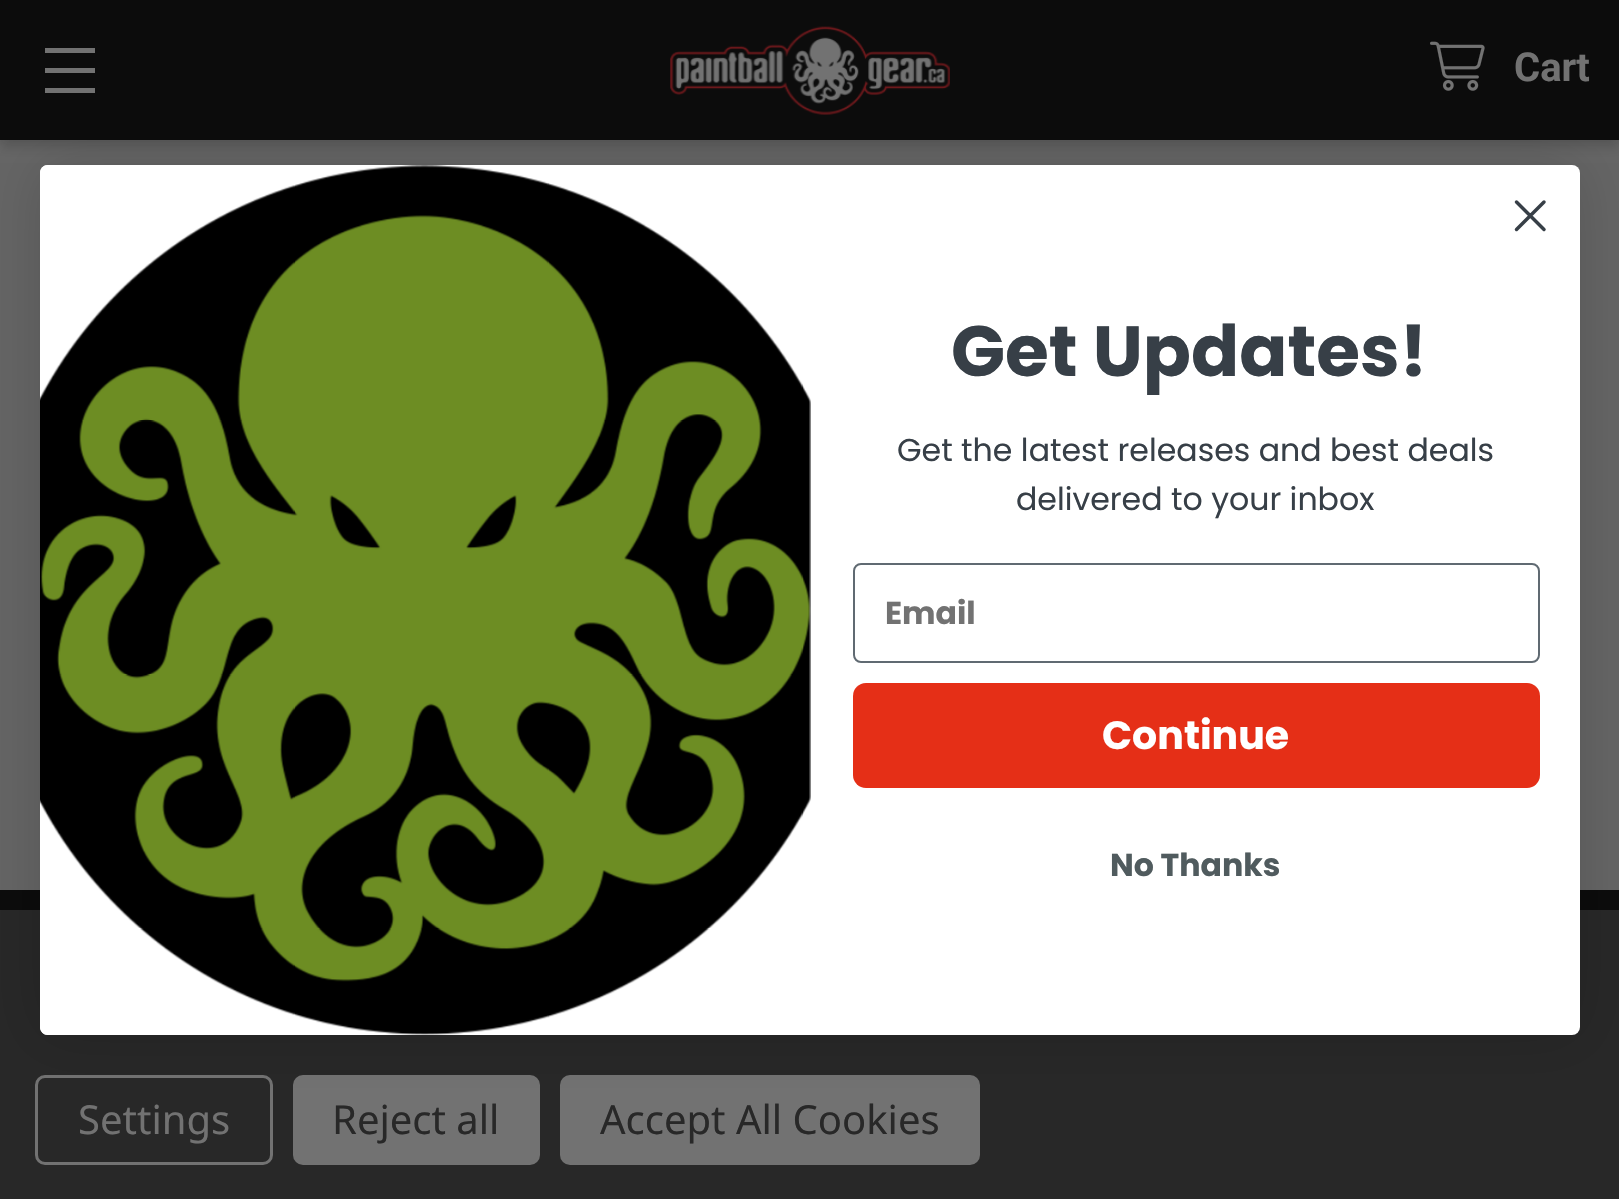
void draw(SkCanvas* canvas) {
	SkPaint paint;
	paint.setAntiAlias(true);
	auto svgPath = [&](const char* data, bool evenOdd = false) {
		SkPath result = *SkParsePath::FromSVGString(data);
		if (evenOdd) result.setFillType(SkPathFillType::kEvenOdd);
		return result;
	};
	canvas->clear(0xff656565);
	paint.setColor(0x330c0c0c);
	paint.setMaskFilter(SkMaskFilter::MakeBlur(kNormal_SkBlurStyle, 6));
	canvas->drawRect(SkRect::MakeXYWH(0, 5, 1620, 140), paint);
	paint.setMaskFilter(nullptr);
	paint.setColor(0xff0c0c0c);
	canvas->drawRect(SkRect::MakeXYWH(0, 0, 1619, 140), paint);
	paint.setColor(0xff727272);
	canvas->drawRect(SkRect::MakeXYWH(45, 68, 50, 5), paint);
	canvas->drawRect(SkRect::MakeXYWH(45, 48, 50, 5), paint);
	canvas->drawRect(SkRect::MakeXYWH(45, 88, 50, 5), paint);
	canvas->drawImageRect(SkImages::DeferredFromEncodedData(SkData::MakeFromFileName("img1.png")), SkRect::MakeXYWH(670, 26, 280, 89), SkSamplingOptions());
	canvas->drawImageRect(SkImages::DeferredFromEncodedData(SkData::MakeFromFileName("img2.png")), SkRect::MakeXYWH(1430, 41, 55, 50), SkSamplingOptions());
	SkFont f1(fontMgr->matchFamilyStyle("Roboto", SkFontStyle::Bold()), 40);
	f1.setSubpixel(true);
	canvas->drawString("Cart", 1514, 81, f1, paint);
	paint.setColor(0xff0c0c0c);
	canvas->drawRect(SkRect::MakeXYWH(0, 890, 1619, 20), paint);
	paint.setColor(0xff282828);
	canvas->drawRect(SkRect::MakeXYWH(0, 910, 1619, 289), paint);
	paint.setStroke(true);
	paint.setStrokeWidth(3);
	paint.setColor(0xff727272);
	canvas->drawRoundRect(SkRect::MakeXYWH(36.5, 1076.5, 235, 87), 8.5, 8.5, paint);
	paint.setStroke(false);
	canvas->drawRoundRect(SkRect::MakeXYWH(293, 1075, 247, 90), 10, 10, paint);
	canvas->drawRoundRect(SkRect::MakeXYWH(560, 1075, 420, 90), 10, 10, paint);
	paint.setColor(0x26000000);
	paint.setMaskFilter(SkMaskFilter::MakeBlur(kNormal_SkBlurStyle, 29.5));
	canvas->drawRoundRect(SkRect::MakeXYWH(40, 165, 1540, 870), 8, 8, paint);
	paint.setMaskFilter(nullptr);
	paint.setColor(0xffffffff);
	canvas->drawRoundRect(SkRect::MakeXYWH(40, 165, 1540, 870), 8, 8, paint);
	paint.setStroke(true);
	paint.setStrokeWidth(3.5);
	paint.setStrokeCap(SkPaint::kRound_Cap);
	paint.setStrokeJoin(SkPaint::kRound_Join);
	paint.setColor(0xff373f47);
	canvas->drawPath(svgPath("M1516.5 202L1544 229.5M1516.5 229.5L1544 202Z"), paint);
	paint.setStroke(false);
	paint.setColor(0xffffffff);
	canvas->drawPath(svgPath("M48 165H810V1035H48C43.5 1035 40 1031.5 40 1027V173C40 168.5 43.5 165 48 165Z"), paint);
	canvas->drawImageRect(SkImages::DeferredFromEncodedData(SkData::MakeFromFileName("img3.png")), SkRect::MakeXYWH(40, 165, 771, 870), SkSamplingOptions());
	SkFont f2(fontMgr->matchFamilyStyle("Poppins", SkFontStyle::Bold()), 71);
	f2.setSubpixel(true);
	paint.setColor(0xff373f47);
	canvas->drawString("Get Updates!", 951, 376, f2, paint);
	SkFont f3(fontMgr->matchFamilyStyle("Poppins", SkFontStyle::Normal()), 31.6);
	f3.setSubpixel(true);
	canvas->drawString("Get the latest releases and best deals", 897, 461, f3, paint);
	canvas->drawString("delivered to your inbox", 1016, 510, f3, paint);
	paint.setStroke(true);
	paint.setStrokeWidth(2);
	paint.setStrokeCap(SkPaint::kButt_Cap);
	paint.setStrokeJoin(SkPaint::kMiter_Join);
	paint.setColor(0xff606a72);
	canvas->drawRoundRect(SkRect::MakeXYWH(854, 564, 685, 98), 7, 7, paint);
	SkFont f4(fontMgr->matchFamilyStyle("Poppins", SkFontStyle::Bold()), 31.6);
	f4.setSubpixel(true);
	paint.setStroke(false);
	paint.setColor(0xff727272);
	canvas->drawString("Email", 885, 624, f4, paint);
	paint.setColor(0xffe52f17);
	canvas->drawRoundRect(SkRect::MakeXYWH(853, 683, 687, 105), 13, 13, paint);
	SkFont f5(fontMgr->matchFamilyStyle("Poppins", SkFontStyle::Bold()), 39.5);
	f5.setSubpixel(true);
	paint.setColor(0xffffffff);
	canvas->drawString("Continue", 1102, 749, f5, paint);
	paint.setColor(0xff505b5e);
	canvas->drawString("No Thanks", 1110, 876, f4, paint);
	SkFont f6(fontMgr->matchFamilyStyle("Noto Sans", SkFontStyle::Normal()), 40);
	f6.setSubpixel(true);
	paint.setColor(0xff727272);
	canvas->drawString("Settings", 78, 1134, f6, paint);
	paint.setColor(0xff282828);
	canvas->drawString("Reject all", 332, 1134, f6, paint);
	canvas->drawString("Accept All Cookies", 600, 1134, f6, paint);
}
